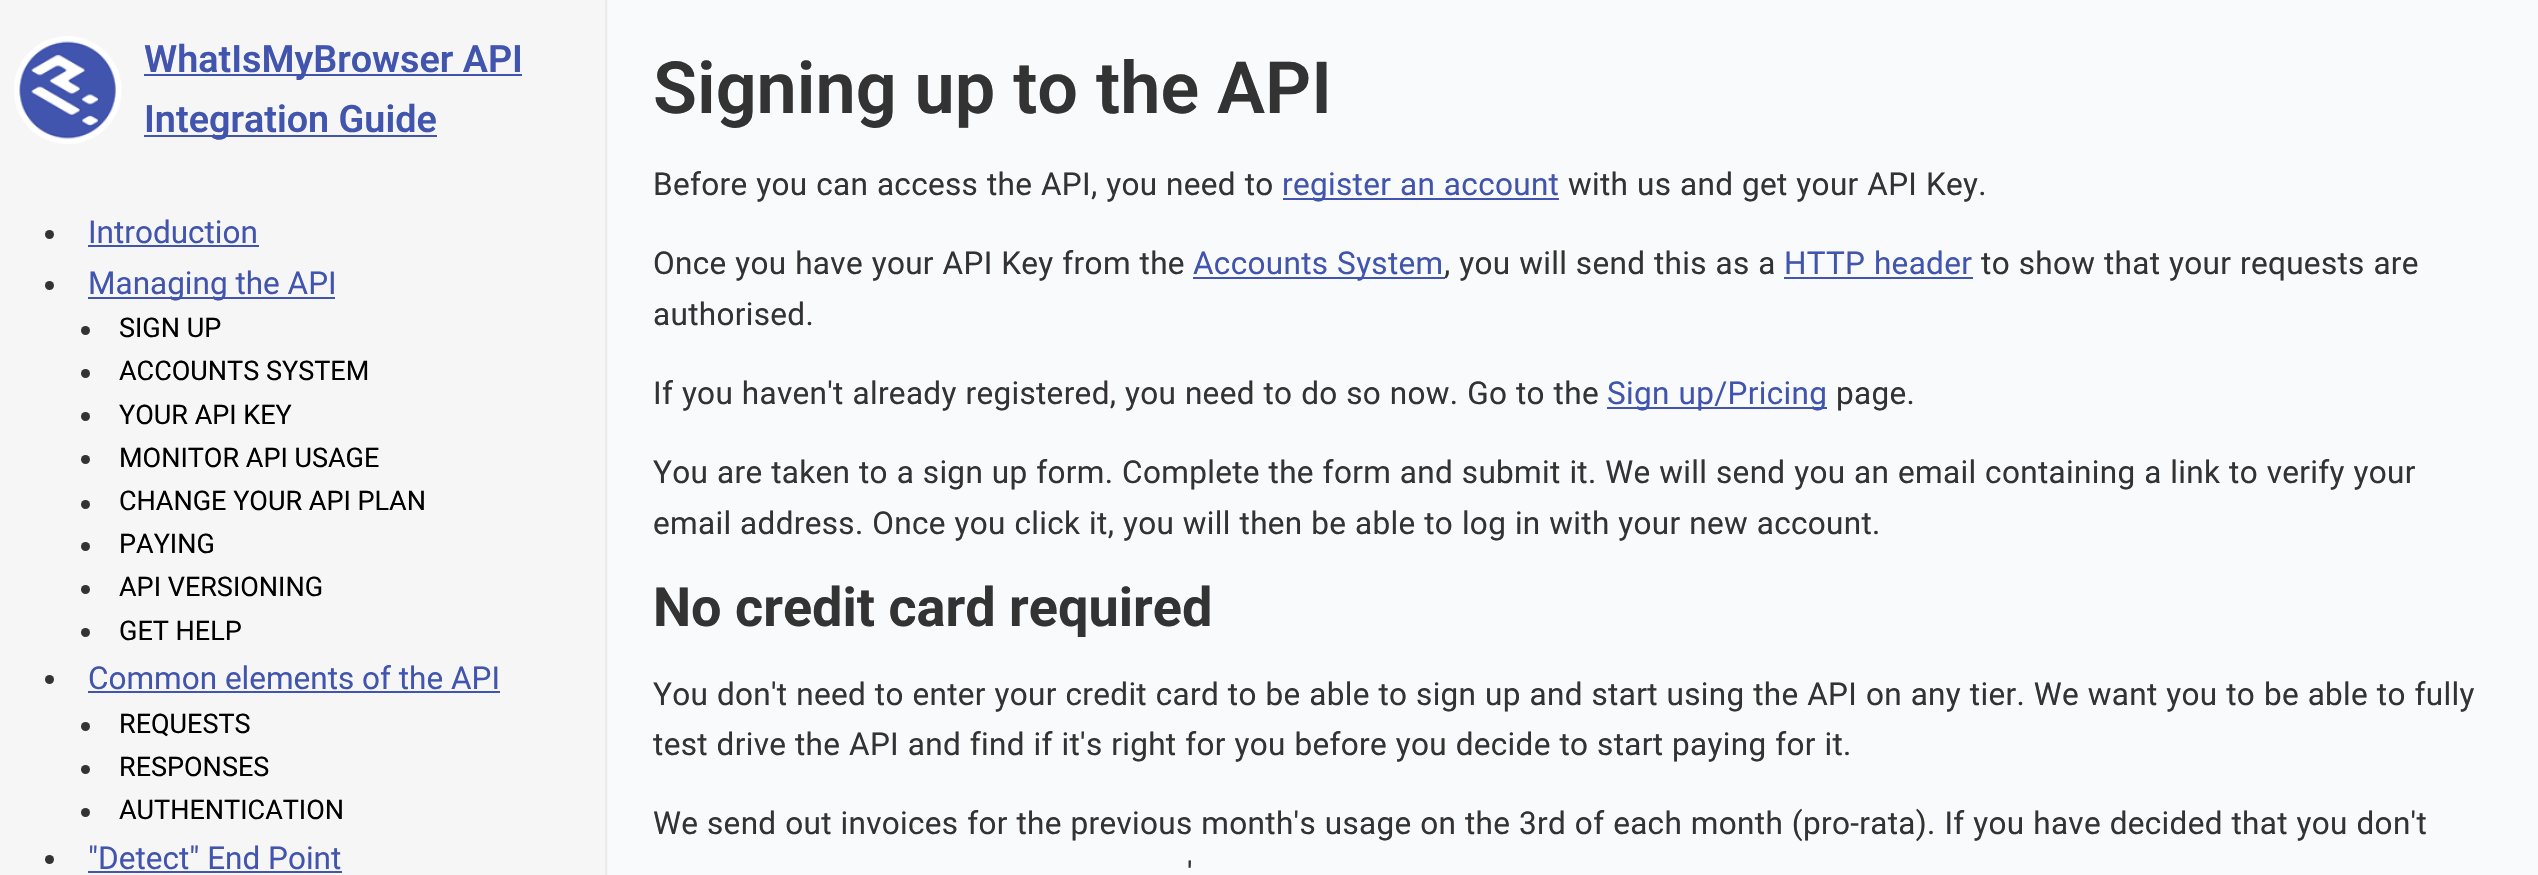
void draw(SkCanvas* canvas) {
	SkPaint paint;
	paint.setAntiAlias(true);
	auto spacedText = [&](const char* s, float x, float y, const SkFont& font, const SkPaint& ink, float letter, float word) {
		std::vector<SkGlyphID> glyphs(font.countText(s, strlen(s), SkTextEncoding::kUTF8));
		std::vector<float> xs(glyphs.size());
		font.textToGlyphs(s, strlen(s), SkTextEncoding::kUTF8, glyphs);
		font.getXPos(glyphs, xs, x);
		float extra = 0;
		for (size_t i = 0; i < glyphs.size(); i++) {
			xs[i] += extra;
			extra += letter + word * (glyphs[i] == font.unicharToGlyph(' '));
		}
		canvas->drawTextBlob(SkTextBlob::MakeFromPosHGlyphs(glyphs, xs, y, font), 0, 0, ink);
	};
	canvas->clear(0xfff9fafb);
	paint.setColor(0xfff6f6f6);
	canvas->drawRect(SkRect::MakeXYWH(0, 0, 608, 875), paint);
	paint.setColor(0xffececec);
	canvas->drawRect(SkRect::MakeXYWH(605, 0, 2, 875), paint);
	canvas->drawImageRect(SkImages::DeferredFromEncodedData(SkData::MakeFromFileName("img1.png")), SkRect::MakeXYWH(14, 36, 108, 108), SkSamplingOptions());
	paint.setColor(0xff4255ae);
	canvas->drawRect(SkRect::MakeXYWH(144, 74, 378, 2), paint);
	SkFont f1(fontMgr->matchFamilyStyle("Roboto", SkFontStyle(600, SkFontStyle::kNormal_Width, SkFontStyle::kUpright_Slant)), 37.75);
	f1.setSubpixel(true);
	canvas->drawString("WhatIsMyBrowser API", 144, 72, f1, paint);
	canvas->drawRect(SkRect::MakeXYWH(144, 135, 293, 2), paint);
	canvas->drawString("Integration Guide", 144, 132, f1, paint);
	paint.setColor(0xff333333);
	canvas->drawCircle(49.5, 234.5, 4.5, paint);
	SkFont f2(fontMgr->matchFamilyStyle("Roboto", SkFontStyle::Normal()), 31.5);
	f2.setSubpixel(true);
	paint.setColor(0xff4255ae);
	canvas->drawString("Introduction", 88, 243, f2, paint);
	canvas->drawRect(SkRect::MakeXYWH(88, 245, 171, 2), paint);
	paint.setColor(0xff333333);
	canvas->drawCircle(49.5, 285.5, 4.5, paint);
	paint.setColor(0xff4255ae);
	canvas->drawRect(SkRect::MakeXYWH(88, 297, 247, 2), paint);
	canvas->drawString("Managing the API", 88, 294, f2, paint);
	paint.setColor(0xff333333);
	canvas->drawCircle(85.5, 330.5, 4.5, paint);
	SkFont f3(fontMgr->matchFamilyStyle("Roboto", SkFontStyle::Normal()), 27);
	f3.setSubpixel(true);
	paint.setColor(0xff000000);
	canvas->drawString("SIGN UP", 119, 337, f3, paint);
	paint.setColor(0xff333333);
	canvas->drawCircle(85.5, 373.5, 4.5, paint);
	paint.setColor(0xff000000);
	canvas->drawString("ACCOUNTS SYSTEM", 119, 380, f3, paint);
	paint.setColor(0xff333333);
	canvas->drawCircle(85.5, 416.5, 4.5, paint);
	paint.setColor(0xff000000);
	canvas->drawString("YOUR API KEY", 119, 424, f3, paint);
	paint.setColor(0xff333333);
	canvas->drawCircle(85.5, 459.5, 4.5, paint);
	paint.setColor(0xff000000);
	canvas->drawString("MONITOR API USAGE", 119, 467, f3, paint);
	paint.setColor(0xff333333);
	canvas->drawCircle(85.5, 504.5, 4.5, paint);
	paint.setColor(0xff000000);
	canvas->drawString("CHANGE YOUR API PLAN", 119, 510, f3, paint);
	paint.setColor(0xff333333);
	canvas->drawCircle(85.5, 546.5, 4.5, paint);
	paint.setColor(0xff000000);
	canvas->drawString("PAYING", 119, 553, f3, paint);
	paint.setColor(0xff333333);
	canvas->drawCircle(85.5, 589.5, 4.5, paint);
	paint.setColor(0xff000000);
	canvas->drawString("API VERSIONING", 119, 596, f3, paint);
	paint.setColor(0xff333333);
	canvas->drawCircle(85.5, 632.5, 4.5, paint);
	paint.setColor(0xff000000);
	canvas->drawString("GET HELP", 119, 640, f3, paint);
	paint.setColor(0xff333333);
	canvas->drawCircle(49.5, 679.5, 4.5, paint);
	paint.setColor(0xff4255ae);
	canvas->drawString("Common elements of the API", 88, 689, f2, paint);
	canvas->drawRect(SkRect::MakeXYWH(88, 691, 412, 2), paint);
	paint.setColor(0xff333333);
	canvas->drawCircle(85.5, 726.5, 4.5, paint);
	paint.setColor(0xff000000);
	canvas->drawString("REQUESTS", 119, 733, f3, paint);
	paint.setColor(0xff333333);
	canvas->drawCircle(85.5, 769.5, 4.5, paint);
	paint.setColor(0xff000000);
	canvas->drawString("RESPONSES", 119, 776, f3, paint);
	paint.setColor(0xff333333);
	canvas->drawCircle(85.5, 812.5, 4.5, paint);
	paint.setColor(0xff000000);
	canvas->drawString("AUTHENTICATION", 119, 819, f3, paint);
	paint.setColor(0xff333333);
	canvas->drawCircle(49.5, 859.5, 4.5, paint);
	paint.setColor(0xff4255ae);
	canvas->drawString("\"Detect\" End Point", 88, 869, f2, paint);
	canvas->drawRect(SkRect::MakeXYWH(88, 871, 254, 2), paint);
	SkFont f4(fontMgr->matchFamilyStyle("Roboto", SkFontStyle(600, SkFontStyle::kNormal_Width, SkFontStyle::kUpright_Slant)), 72);
	f4.setSubpixel(true);
	paint.setColor(0xff333333);
	canvas->drawString("Signing up to the API", 653, 113, f4, paint);
	spacedText("Before you can access the API, you need to", 653, 195, f2, paint, 0.32, 0.6);
	paint.setColor(0xff4255ae);
	canvas->drawRect(SkRect::MakeXYWH(1283, 198, 276, 2), paint);
	spacedText("register an account", 1282, 195, f2, paint, 0.32, 0.6);
	paint.setColor(0xff333333);
	spacedText("with us and get your API Key.", 1568, 195, f2, paint, 0.32, 0.6);
	spacedText("Once you have your API Key from the", 653, 274, f2, paint, 0.32, 0.6);
	paint.setColor(0xff4255ae);
	canvas->drawRect(SkRect::MakeXYWH(1193, 277, 252, 2), paint);
	spacedText("Accounts System", 1193, 274, f2, paint, 0.32, 0.6);
	paint.setColor(0xff333333);
	spacedText(", you will send this as a", 1444, 274, f2, paint, 0.32, 0.6);
	paint.setColor(0xff4255ae);
	spacedText("HTTP header", 1784, 274, f2, paint, 0.32, 0.6);
	canvas->drawRect(SkRect::MakeXYWH(1784, 277, 189, 2), paint);
	paint.setColor(0xff333333);
	spacedText("to show that your requests are", 1981, 274, f2, paint, 0.32, 0.6);
	spacedText("authorised.", 653, 325, f2, paint, 0.32, 0);
	spacedText("If you haven't already registered, you need to do so now. Go to the", 653, 404, f2, paint, 0.32, 0.6);
	paint.setColor(0xff4255ae);
	canvas->drawRect(SkRect::MakeXYWH(1607, 407, 220, 2), paint);
	spacedText("Sign up/Pricing", 1607, 404, f2, paint, 0.32, 0.6);
	paint.setColor(0xff333333);
	spacedText("page.", 1836, 404, f2, paint, 0.32, 0);
	spacedText("You are taken to a sign up form. Complete the form and submit it. We will send you an email containing a link to verify your", 653, 483, f2, paint, 0.32, 0.6);
	spacedText("email address. Once you click it, you will then be able to log in with your new account.", 653, 534, f2, paint, 0.32, 0.6);
	SkFont f5(fontMgr->matchFamilyStyle("Roboto", SkFontStyle::Bold()), 54);
	f5.setSubpixel(true);
	canvas->drawString("No credit card required", 653, 626, f5, paint);
	spacedText("You don't need to enter your credit card to be able to sign up and start using the API on any tier. We want you to be able to fully", 653, 705, f2, paint, 0.32, 0.6);
	spacedText("test drive the API and find if it's right for you before you decide to start paying for it.", 653, 755, f2, paint, 0.32, 0.6);
	spacedText("We send out invoices for the previous month's usage on the 3rd of each month (pro-rata). If you have decided that you don't", 653, 834, f2, paint, 0.32, 0.6);
	spacedText("'", 1187, 884, f2, paint, 0.32, 0.6);
}
